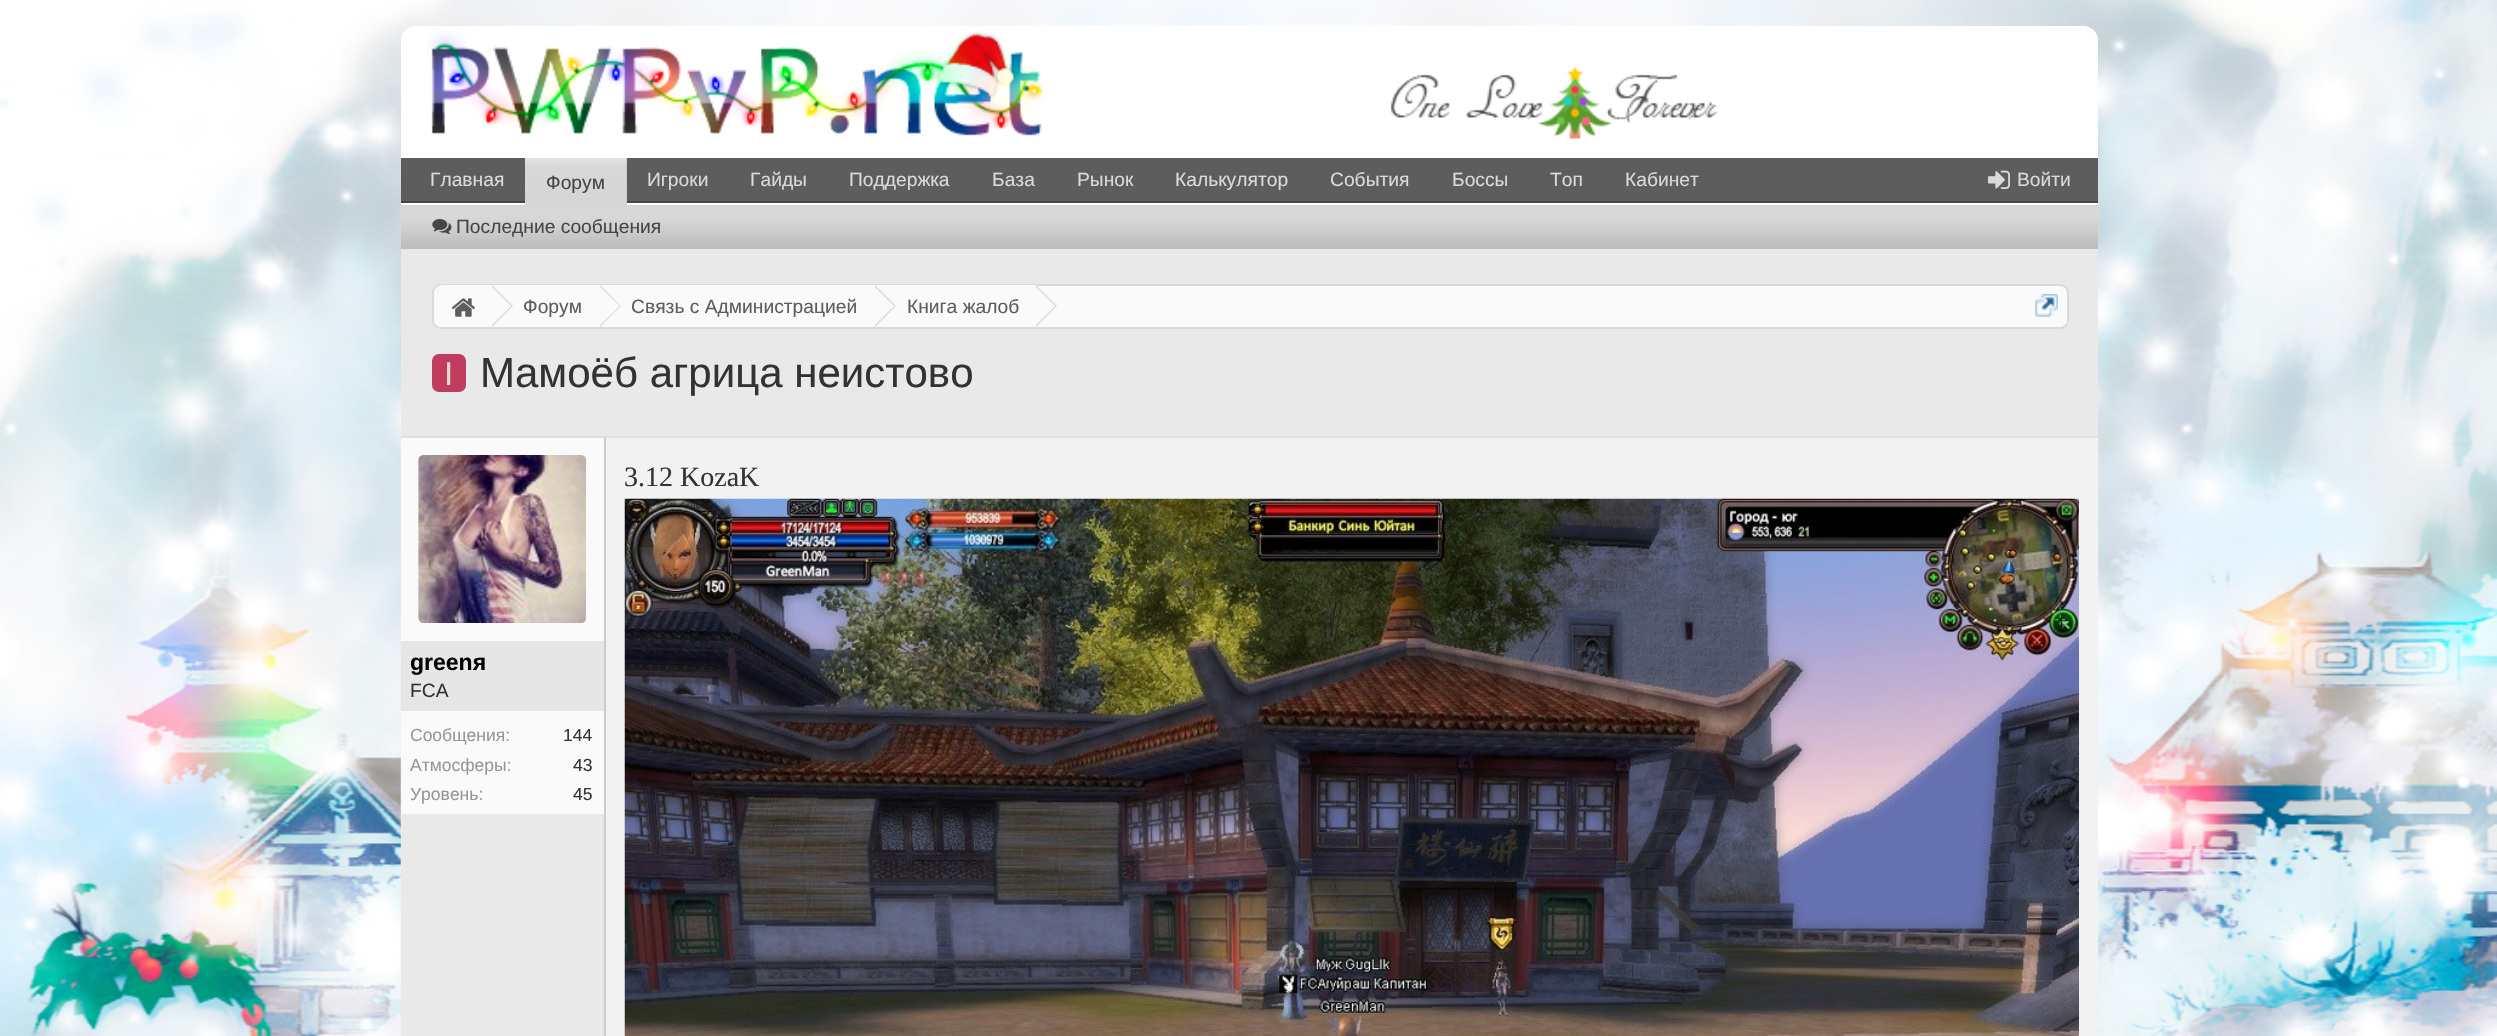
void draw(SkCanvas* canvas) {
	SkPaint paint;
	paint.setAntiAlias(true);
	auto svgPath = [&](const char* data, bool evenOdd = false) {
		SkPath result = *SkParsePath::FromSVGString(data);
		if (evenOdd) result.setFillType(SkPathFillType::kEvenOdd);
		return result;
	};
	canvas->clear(0xffffffff);
	canvas->drawImageRect(SkImages::DeferredFromEncodedData(SkData::MakeFromFileName("img1.png")), SkRect::MakeXYWH(0, 0, 2497, 1036), SkSamplingOptions());
	paint.setColor(0xffffffff);
	canvas->drawPath(svgPath("M415 26H2084C2091.5 26 2098 32.5 2098 40V158H401V40C401 32.5 407.5 26 415 26Z"), paint);
	canvas->drawImageRect(SkImages::DeferredFromEncodedData(SkData::MakeFromFileName("img2.png")), SkRect::MakeXYWH(427, 31, 617, 105), SkSamplingOptions());
	canvas->drawImageRect(SkImages::DeferredFromEncodedData(SkData::MakeFromFileName("img4.png")), SkRect::MakeXYWH(1450, 66, 285, 73), SkSamplingOptions());
	canvas->drawImageRect(SkImages::DeferredFromEncodedData(SkData::MakeFromFileName("img3.png")), SkRect::MakeXYWH(1390, 66, 345, 73), SkSamplingOptions());
	canvas->drawRect(SkRect::MakeXYWH(401, 203, 1697, 2), paint);
	paint.setColor(0xff5d5d5d);
	canvas->drawRect(SkRect::MakeXYWH(401, 158, 1697, 43), paint);
	paint.setColor(0xff464646);
	canvas->drawRect(SkRect::MakeXYWH(401, 201, 1697, 2), paint);
	SkFont f1(fontMgr->matchFamilyStyle("Liberation Sans", SkFontStyle::Normal()), 19.25);
	f1.setSubpixel(true);
	paint.setColor(0xffdadada);
	canvas->drawString("Главная", 430, 186, f1, paint);
	canvas->drawString("Игроки", 647, 186, f1, paint);
	canvas->drawString("Гайды", 750, 186, f1, paint);
	canvas->drawString("Поддержка", 849, 186, f1, paint);
	canvas->drawString("База", 992, 186, f1, paint);
	canvas->drawString("Рынок", 1077, 186, f1, paint);
	canvas->drawString("Калькулятор", 1175, 186, f1, paint);
	canvas->drawString("События", 1330, 186, f1, paint);
	canvas->drawString("Боссы", 1452, 186, f1, paint);
	canvas->drawString("Топ", 1550, 186, f1, paint);
	canvas->drawString("Кабинет", 1625, 186, f1, paint);
	paint.setColor(0xffbebebe);
	canvas->drawRect(SkRect::MakeXYWH(525, 158, 102, 47), paint);
	canvas->drawImageRect(SkImages::DeferredFromEncodedData(SkData::MakeFromFileName("img5.png")), SkRect::MakeXYWH(525, 158, 102, 47), SkSamplingOptions());
	paint.setColor(0xff464646);
	canvas->drawString("Форум", 546, 189, f1, paint);
	paint.setColor(0xffbebebe);
	canvas->drawRect(SkRect::MakeXYWH(401, 205, 1697, 44), paint);
	canvas->drawImageRect(SkImages::DeferredFromEncodedData(SkData::MakeFromFileName("img6.png")), SkRect::MakeXYWH(400, 204, 1699, 39), SkSamplingOptions());
	canvas->drawImageRect(SkImages::DeferredFromEncodedData(SkData::MakeFromFileName("img7.png")), SkRect::MakeXYWH(432, 219, 20, 16), SkSamplingOptions());
	paint.setColor(0xff464646);
	canvas->drawString("Последние сообщения", 456, 233, f1, paint);
	canvas->drawImageRect(SkImages::DeferredFromEncodedData(SkData::MakeFromFileName("img8.png")), SkRect::MakeXYWH(1988, 170, 22, 19), SkSamplingOptions());
	paint.setColor(0xffdadada);
	canvas->drawString("Войти", 2017, 186, f1, paint);
	paint.setColor(0xffe9e9e9);
	canvas->drawRect(SkRect::MakeXYWH(401, 249, 1697, 187), paint);
	paint.setColor(0xfffafafa);
	canvas->drawRoundRect(SkRect::MakeXYWH(433, 285, 1635, 43), 8, 8, paint);
	paint.setStroke(true);
	paint.setStrokeWidth(2);
	paint.setColor(0xffdadada);
	canvas->drawRoundRect(SkRect::MakeXYWH(433, 285, 1635, 43), 8, 8, paint);
	canvas->save();
	canvas->clipPath(svgPath("M441 285H2060C2064 285 2067 288 2067 292V320C2067 324 2064 327 2060 327H441C437 327 434 324 434 320V292C434 288 437 285 441 285Z"), true);
	paint.setStroke(false);
	paint.setColor(0xfffafafa);
	canvas->drawPath(svgPath("M443 285H492V329H443C438 329 434 325 434 320V294C434 289 438 285 443 285Z"), paint);
	canvas->restore();
	canvas->drawImageRect(SkImages::DeferredFromEncodedData(SkData::MakeFromFileName("img9.png")), SkRect::MakeXYWH(451, 298, 24, 19), SkSamplingOptions());
	canvas->drawRect(SkRect::MakeXYWH(492, 285, 544, 1), paint);
	paint.setColor(0xffdadada);
	canvas->drawPath(svgPath("M492 327V285L513 306Z"), paint);
	paint.setColor(0xfffafafa);
	canvas->drawPath(svgPath("M490 327V285L511 306Z"), paint);
	paint.setColor(0xff5d5d5d);
	canvas->drawString("Форум", 523, 313, f1, paint);
	paint.setColor(0xffdadada);
	canvas->drawPath(svgPath("M600 327V285L621 306Z"), paint);
	paint.setColor(0xfffafafa);
	canvas->drawPath(svgPath("M598 327V285L620 306Z"), paint);
	paint.setColor(0xff5d5d5d);
	canvas->drawString("Связь с Администрацией", 631, 313, f1, paint);
	paint.setColor(0xffdadada);
	canvas->drawPath(svgPath("M875 327V285L896 306Z"), paint);
	paint.setColor(0xfffafafa);
	canvas->drawPath(svgPath("M873 327V285L894 306Z"), paint);
	paint.setColor(0xff5d5d5d);
	canvas->drawString("Книга жалоб", 907, 313, f1, paint);
	paint.setColor(0xffdadada);
	canvas->drawPath(svgPath("M1036 327V285L1057 306Z"), paint);
	paint.setColor(0xfffafafa);
	canvas->drawPath(svgPath("M1034 327V285L1055 306Z"), paint);
	canvas->drawImageRect(SkImages::DeferredFromEncodedData(SkData::MakeFromFileName("img10.png")), SkRect::MakeXYWH(2035, 294, 23, 23), SkSamplingOptions());
	paint.setColor(0xffc03c5c);
	canvas->drawRoundRect(SkRect::MakeXYWH(432, 354, 34, 38), 7, 7, paint);
	SkFont f2(fontMgr->matchFamilyStyle("Liberation Sans", SkFontStyle::Normal()), 33);
	f2.setSubpixel(true);
	paint.setColor(0xffdadada);
	canvas->drawString("I", 444, 385, f2, paint);
	SkFont f3(fontMgr->matchFamilyStyle("Liberation Sans", SkFontStyle::Normal()), 42);
	f3.setSubpixel(true);
	paint.setColor(0xff333333);
	canvas->drawString("Мамоёб агрица неистово", 480, 387, f3, paint);
	canvas->drawImageRect(SkImages::DeferredFromEncodedData(SkData::MakeFromFileName("img11.png")), SkRect::MakeXYWH(400, 435, 1699, 601), SkSamplingOptions());
	paint.setColor(0xffe0e0e0);
	canvas->drawRect(SkRect::MakeXYWH(401, 436, 1697, 2), paint);
	paint.setColor(0xffcccccc);
	canvas->drawRect(SkRect::MakeXYWH(604, 438, 2, 598), paint);
	SkFont f4(fontMgr->matchFamilyStyle("Liberation Serif", SkFontStyle::Normal()), 28);
	f4.setSubpixel(true);
	paint.setColor(0xff333333);
	canvas->drawString("3.12 KozaK", 624, 486, f4, paint);
	canvas->drawImageRect(SkImages::DeferredFromEncodedData(SkData::MakeFromFileName("img12.png")), SkRect::MakeXYWH(624, 498, 1455, 538), SkSamplingOptions());
	paint.setColor(0xffe6e6e6);
	canvas->drawRect(SkRect::MakeXYWH(401, 641, 203, 70), paint);
	paint.setColor(0xfffafafa);
	canvas->drawRect(SkRect::MakeXYWH(401, 438, 203, 203), paint);
	paint.setColor(0xfff2f2f2);
	canvas->drawRoundRect(SkRect::MakeXYWH(418, 455, 168, 168), 5, 5, paint);
	canvas->drawImageRect(SkImages::DeferredFromEncodedData(SkData::MakeFromFileName("img13.png")), SkRect::MakeXYWH(418, 455, 169, 168), SkSamplingOptions());
	SkFont f5(fontMgr->matchFamilyStyle("Liberation Sans", SkFontStyle::Bold()), 23);
	f5.setSubpixel(true);
	paint.setColor(0xff000000);
	canvas->drawString("greenя", 410, 670, f5, paint);
	paint.setColor(0xff333333);
	canvas->drawString("FCA", 410, 697, f1, paint);
	paint.setColor(0xfffafafa);
	canvas->drawRect(SkRect::MakeXYWH(401, 711, 203, 103), paint);
	SkFont f6(fontMgr->matchFamilyStyle("Liberation Sans", SkFontStyle::Normal()), 17.5);
	f6.setSubpixel(true);
	paint.setColor(0xff969696);
	canvas->drawString("Сообщения:", 410, 741, f6, paint);
	paint.setColor(0xff333333);
	canvas->drawString("144", 563, 741, f6, paint);
	paint.setColor(0xff969696);
	canvas->drawString("Атмосферы:", 410, 771, f6, paint);
	paint.setColor(0xff333333);
	canvas->drawString("43", 573, 771, f6, paint);
	paint.setColor(0xff969696);
	canvas->drawString("Уровень:", 410, 800, f6, paint);
	paint.setColor(0xff333333);
	canvas->drawString("45", 573, 800, f6, paint);
}
